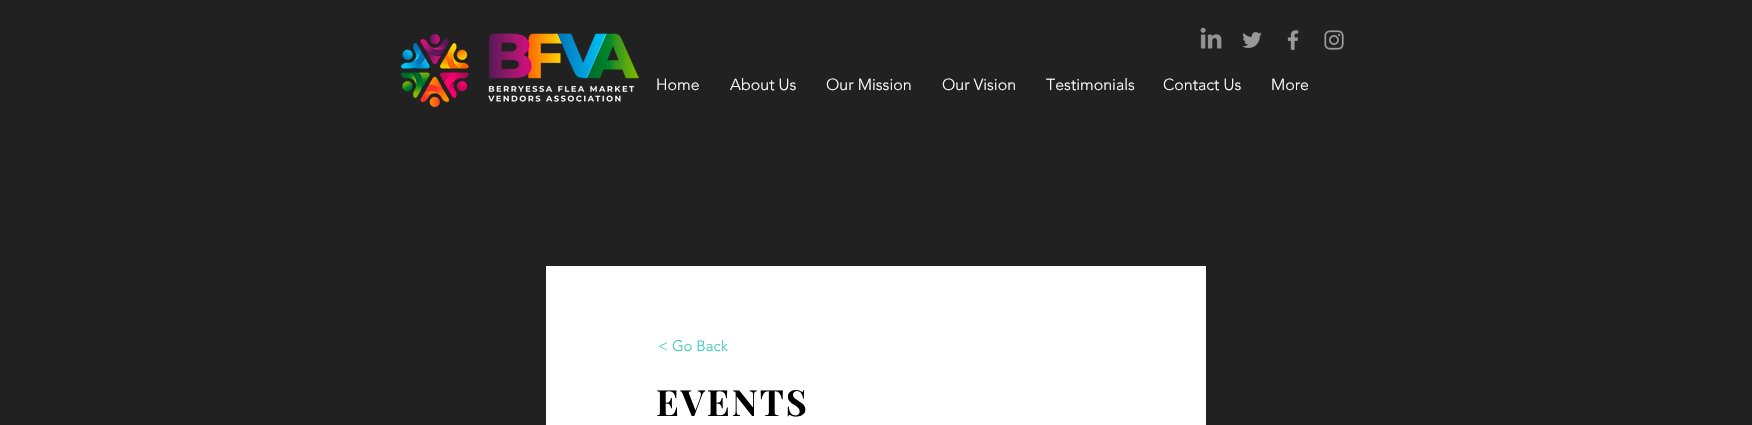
void draw(SkCanvas* canvas) {
	SkPaint paint;
	paint.setAntiAlias(true);
	auto spacedText = [&](const char* s, float x, float y, const SkFont& font, const SkPaint& ink, float letter, float word) {
		std::vector<SkGlyphID> glyphs(font.countText(s, strlen(s), SkTextEncoding::kUTF8));
		std::vector<float> xs(glyphs.size());
		font.textToGlyphs(s, strlen(s), SkTextEncoding::kUTF8, glyphs);
		font.getXPos(glyphs, xs, x);
		float extra = 0;
		for (size_t i = 0; i < glyphs.size(); i++) {
			xs[i] += extra;
			extra += letter + word * (glyphs[i] == font.unicharToGlyph(' '));
		}
		canvas->drawTextBlob(SkTextBlob::MakeFromPosHGlyphs(glyphs, xs, y, font), 0, 0, ink);
	};
	canvas->clear(0xff212121);
	canvas->drawImageRect(SkImages::DeferredFromEncodedData(SkData::MakeFromFileName("img1.png")), SkRect::MakeXYWH(400, 33, 239, 75), SkSamplingOptions());
	canvas->drawImageRect(SkImages::DeferredFromEncodedData(SkData::MakeFromFileName("img2.png")), SkRect::MakeXYWH(1200, 27, 22, 22), SkSamplingOptions());
	canvas->drawImageRect(SkImages::DeferredFromEncodedData(SkData::MakeFromFileName("img3.png")), SkRect::MakeXYWH(1242, 32, 20, 17), SkSamplingOptions());
	canvas->drawImageRect(SkImages::DeferredFromEncodedData(SkData::MakeFromFileName("img4.png")), SkRect::MakeXYWH(1287, 30, 12, 20), SkSamplingOptions());
	canvas->drawImageRect(SkImages::DeferredFromEncodedData(SkData::MakeFromFileName("img5.png")), SkRect::MakeXYWH(1324, 30, 20, 20), SkSamplingOptions());
	SkFont f1(fontMgr->matchFamilyStyle("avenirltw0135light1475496", SkFontStyle(300, SkFontStyle::kNormal_Width, SkFontStyle::kUpright_Slant)), 16);
	f1.setSubpixel(true);
	paint.setColor(0xffffffff);
	canvas->drawString("Home", 656, 90, f1, paint);
	canvas->drawString("About Us", 730, 90, f1, paint);
	canvas->drawString("Our Mission", 826, 90, f1, paint);
	canvas->drawString("Our Vision", 942, 90, f1, paint);
	canvas->drawString("Testimonials", 1046, 90, f1, paint);
	canvas->drawString("Contact Us", 1163, 90, f1, paint);
	canvas->drawString("More", 1271, 90, f1, paint);
	canvas->drawRect(SkRect::MakeXYWH(546, 266, 660, 159), paint);
	SkFont f2(fontMgr->matchFamilyStyle("avenirltw0135light1475496", SkFontStyle(300, SkFontStyle::kNormal_Width, SkFontStyle::kUpright_Slant)), 15);
	f2.setSubpixel(true);
	paint.setColor(0xff3eccb5);
	canvas->drawString("< Go Back", 658, 351, f2, paint);
	SkFont f3(fontMgr->matchFamilyStyle("Playfair Display", SkFontStyle::Bold()), 36);
	f3.setSubpixel(true);
	paint.setColor(0xff000000);
	spacedText("EVENTS", 656, 416, f3, paint, 2, 0);
}
